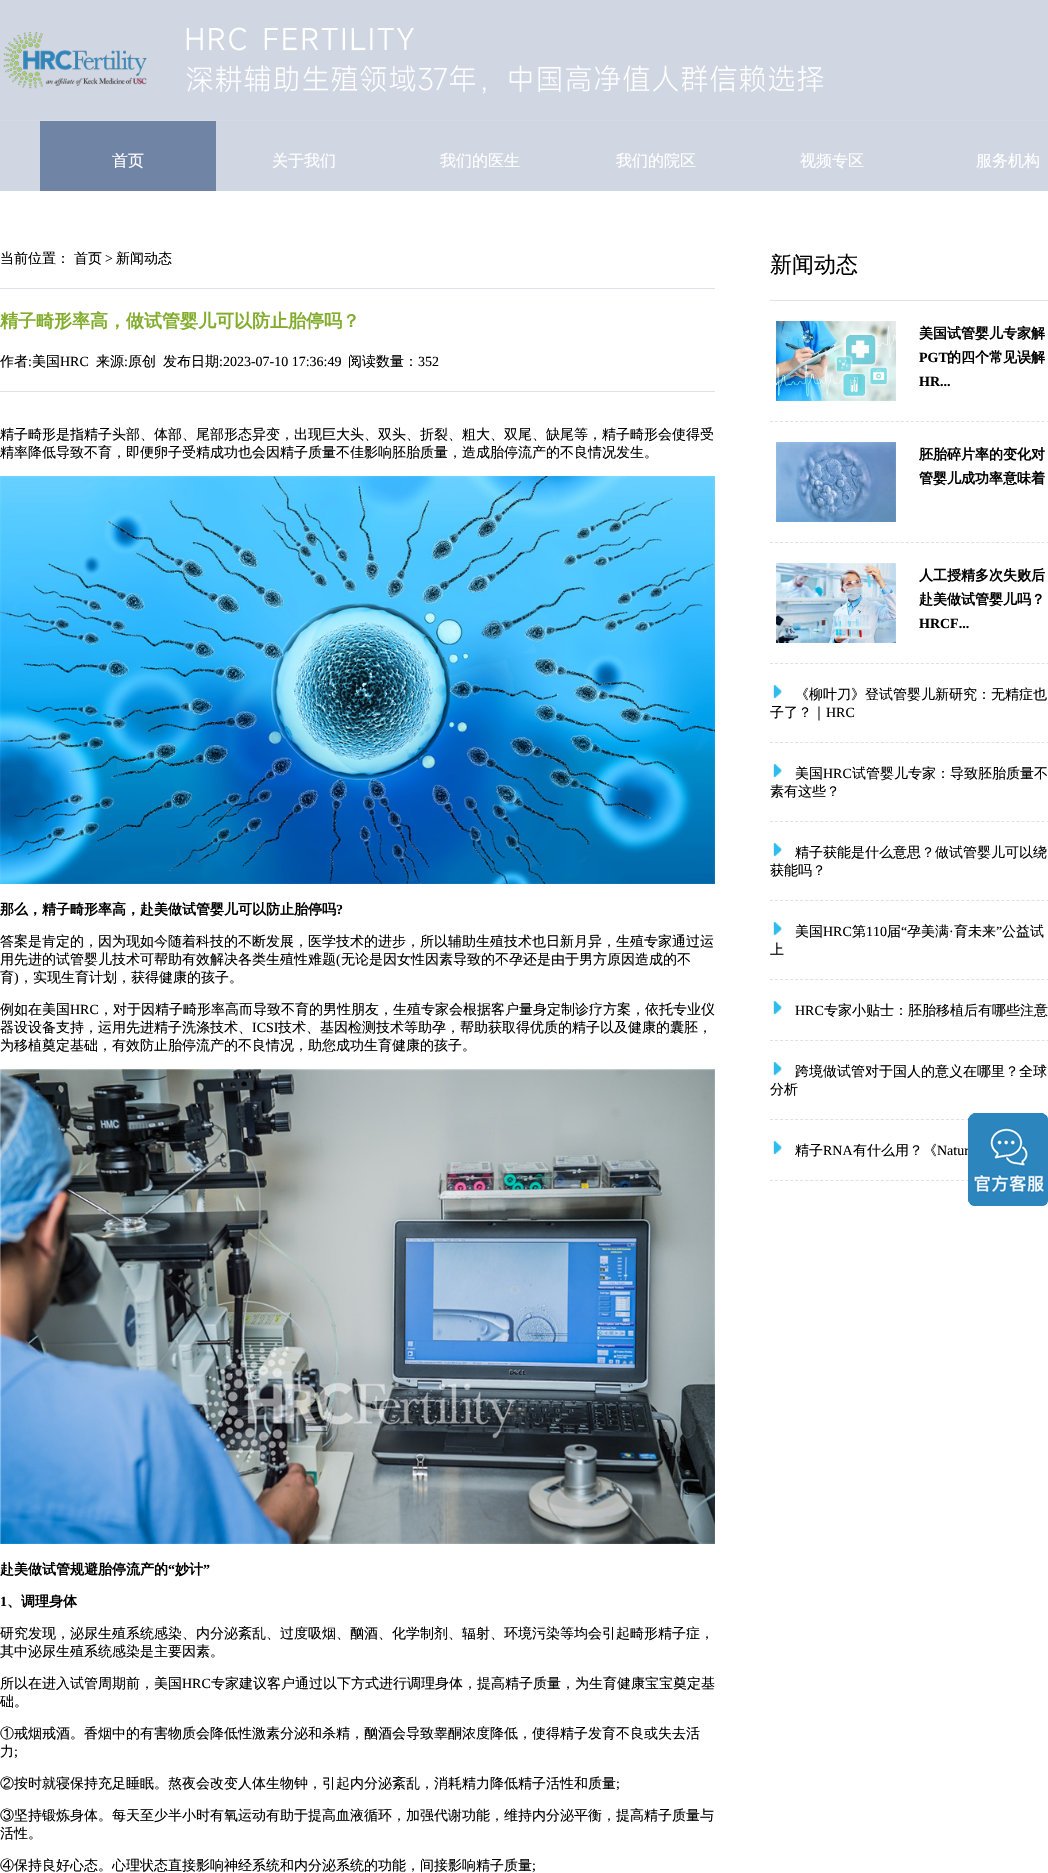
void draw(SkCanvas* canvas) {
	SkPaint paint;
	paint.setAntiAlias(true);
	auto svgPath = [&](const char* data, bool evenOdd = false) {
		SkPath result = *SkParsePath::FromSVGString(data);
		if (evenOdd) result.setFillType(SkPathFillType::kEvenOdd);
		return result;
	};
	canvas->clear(0xffffffff);
	paint.setColor(0xffd0d6e2);
	canvas->drawRect(SkRect::MakeXYWH(0, 0, 1048, 191), paint);
	canvas->drawImageRect(SkImages::DeferredFromEncodedData(SkData::MakeFromFileName("img1.png")), SkRect::MakeXYWH(3, 31, 144, 58), SkSamplingOptions());
	canvas->drawImageRect(SkImages::DeferredFromEncodedData(SkData::MakeFromFileName("img2.png")), SkRect::MakeXYWH(186, 27, 637, 67), SkSamplingOptions());
	paint.setColor(0xffd5dae5);
	canvas->drawRect(SkRect::MakeXYWH(0, 120, 1048, 1), paint);
	paint.setColor(0xff7084a6);
	canvas->drawRect(SkRect::MakeXYWH(40, 121, 176, 70), paint);
	SkFont f1(fontMgr->matchFamilyStyle("WenQuanYi Zen Hei", SkFontStyle(500, SkFontStyle::kNormal_Width, SkFontStyle::kUpright_Slant)), 16);
	f1.setSubpixel(true);
	paint.setColor(0xffffffff);
	canvas->drawString("首页", 112, 166, f1, paint);
	canvas->drawString("关于我们", 272, 166, f1, paint);
	canvas->drawString("我们的医生", 440, 166, f1, paint);
	canvas->drawString("我们的院区", 616, 166, f1, paint);
	canvas->drawString("视频专区", 800, 166, f1, paint);
	canvas->drawString("服务机构", 976, 166, f1, paint);
	paint.setColor(0xffdee2e6);
	canvas->drawRect(SkRect::MakeXYWH(0, 288, 715, 1), paint);
	SkFont f2(fontMgr->matchFamilyStyle("WenQuanYi Zen Hei", SkFontStyle(500, SkFontStyle::kNormal_Width, SkFontStyle::kUpright_Slant)), 14);
	f2.setSubpixel(true);
	paint.setColor(0xff000000);
	canvas->drawString("当前位置：", 0, 263, f2, paint);
	canvas->drawString("首页", 74, 263, f2, paint);
	SkFont f3(fontMgr->matchFamilyStyle("Liberation Serif", SkFontStyle::Normal()), 14);
	f3.setSubpixel(true);
	canvas->drawString(">", 105, 263, f3, paint);
	canvas->drawString("新闻动态", 116, 263, f2, paint);
	SkFont f4(fontMgr->matchFamilyStyle("WenQuanYi Zen Hei", SkFontStyle::Bold()), 18);
	f4.setSubpixel(true);
	paint.setColor(0xff82ad2c);
	canvas->drawString("精子畸形率高，做试管婴儿可以防止胎停吗？", 0, 327, f4, paint);
	paint.setColor(0xffdee2e6);
	canvas->drawRect(SkRect::MakeXYWH(0, 391, 715, 1), paint);
	paint.setColor(0xff000000);
	canvas->drawString("作者", 0, 366, f2, paint);
	canvas->drawString(":", 28, 366, f3, paint);
	canvas->drawString("美国", 32, 366, f2, paint);
	canvas->drawString("HRC", 60, 366, f3, paint);
	canvas->drawString("来源", 96, 366, f2, paint);
	canvas->drawString(":", 124, 366, f3, paint);
	canvas->drawString("原创", 128, 366, f2, paint);
	canvas->drawString("发布日期", 163, 366, f2, paint);
	canvas->drawString(":2023-07-10 17:36:49", 219, 366, f3, paint);
	canvas->drawString("阅读数量：", 348, 366, f2, paint);
	canvas->drawString("352", 418, 366, f3, paint);
	canvas->drawString("精子畸形是指精子头部、体部、尾部形态异变，出现巨大头、双头、折裂、粗大、双尾、缺尾等，精子畸形会使得受", 0, 439, f2, paint);
	canvas->drawString("精率降低导致不育，即便卵子受精成功也会因精子质量不佳影响胚胎质量，造成胎停流产的不良情况发生。", 0, 457, f2, paint);
	canvas->drawImageRect(SkImages::DeferredFromEncodedData(SkData::MakeFromFileName("img3.png")), SkRect::MakeXYWH(0, 476, 715, 408), SkSamplingOptions());
	SkFont f5(fontMgr->matchFamilyStyle("WenQuanYi Zen Hei", SkFontStyle::Bold()), 14);
	f5.setSubpixel(true);
	canvas->drawString("那么，精子畸形率高，赴美做试管婴儿可以防止胎停吗", 0, 914, f5, paint);
	SkFont f6(fontMgr->matchFamilyStyle("Liberation Serif", SkFontStyle::Bold()), 14);
	f6.setSubpixel(true);
	canvas->drawString("?", 336, 914, f6, paint);
	canvas->drawString("答案是肯定的，因为现如今随着科技的不断发展，医学技术的进步，所以辅助生殖技术也日新月异，生殖专家通过运", 0, 946, f2, paint);
	canvas->drawString("用先进的试管婴儿技术可帮助有效解决各类生殖性难题", 0, 964, f2, paint);
	canvas->drawString("(", 336, 964, f3, paint);
	canvas->drawString("无论是因女性因素导致的不孕还是由于男方原因造成的不", 341, 964, f2, paint);
	canvas->drawString("育", 0, 982, f2, paint);
	canvas->drawString(")", 14, 982, f3, paint);
	canvas->drawString("，实现生育计划，获得健康的孩子。", 19, 982, f2, paint);
	canvas->drawString("例如在美国", 0, 1014, f2, paint);
	canvas->drawString("HRC", 70, 1014, f3, paint);
	canvas->drawString("，对于因精子畸形率高而导致不育的男性朋友，生殖专家会根据客户量身定制诊疗方案，依托专业仪", 99, 1014, f2, paint);
	canvas->drawString("器设设备支持，运用先进精子洗涤技术、", 0, 1032, f2, paint);
	canvas->drawString("ICSI", 252, 1032, f3, paint);
	canvas->drawString("技术、基因检测技术等助孕，帮助获取得优质的精子以及健康的囊胚，", 278, 1032, f2, paint);
	canvas->drawString("为移植奠定基础，有效防止胎停流产的不良情况，助您成功生育健康的孩子。", 0, 1050, f2, paint);
	canvas->drawImageRect(SkImages::DeferredFromEncodedData(SkData::MakeFromFileName("img4.png")), SkRect::MakeXYWH(0, 1069, 715, 475), SkSamplingOptions());
	canvas->drawString("赴美做试管规避胎停流产的", 0, 1574, f5, paint);
	canvas->drawString("“", 168, 1574, f6, paint);
	canvas->drawString("妙计", 175, 1574, f5, paint);
	canvas->drawString("”", 203, 1574, f6, paint);
	canvas->drawString("1", 0, 1606, f6, paint);
	canvas->drawString("、调理身体", 7, 1606, f5, paint);
	canvas->drawString("研究发现，泌尿生殖系统感染、内分泌紊乱、过度吸烟、酗酒、化学制剂、辐射、环境污染等均会引起畸形精子症，", 0, 1638, f2, paint);
	canvas->drawString("其中泌尿生殖系统感染是主要因素。", 0, 1656, f2, paint);
	canvas->drawString("所以在进入试管周期前，美国", 0, 1688, f2, paint);
	canvas->drawString("HRC", 182, 1688, f3, paint);
	canvas->drawString("专家建议客户通过以下方式进行调理身体，提高精子质量，为生育健康宝宝奠定基", 211, 1688, f2, paint);
	canvas->drawString("础。", 0, 1706, f2, paint);
	canvas->drawString("①戒烟戒酒。香烟中的有害物质会降低性激素分泌和杀精，酗酒会导致睾酮浓度降低，使得精子发育不良或失去活", 0, 1738, f2, paint);
	canvas->drawString("力", 0, 1756, f2, paint);
	canvas->drawString(";", 14, 1756, f3, paint);
	canvas->drawString("②按时就寝保持充足睡眠。熬夜会改变人体生物钟，引起内分泌紊乱，消耗精力降低精子活性和质量", 0, 1788, f2, paint);
	canvas->drawString(";", 616, 1788, f3, paint);
	canvas->drawString("③坚持锻炼身体。每天至少半小时有氧运动有助于提高血液循环，加强代谢功能，维持内分泌平衡，提高精子质量与", 0, 1820, f2, paint);
	canvas->drawString("活性。", 0, 1838, f2, paint);
	canvas->drawString("④保持良好心态。心理状态直接影响神经系统和内分泌系统的功能，间接影响精子质量", 0, 1870, f2, paint);
	canvas->drawString(";", 532, 1870, f3, paint);
	paint.setColor(0xffdee2e6);
	canvas->drawRect(SkRect::MakeXYWH(770, 300, 278, 1), paint);
	SkFont f7(fontMgr->matchFamilyStyle("WenQuanYi Zen Hei", SkFontStyle(500, SkFontStyle::kNormal_Width, SkFontStyle::kUpright_Slant)), 22);
	f7.setSubpixel(true);
	paint.setColor(0xff000000);
	canvas->drawString("新闻动态", 770, 272, f7, paint);
	paint.setStroke(true);
	paint.setStrokeWidth(1);
	paint.setColor(0xffdee2e6);
	paint.setPathEffect(SkDashPathEffect::Make({{3, 2.03f}}, 0));
	canvas->drawPath(svgPath("M770 421.5H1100"), paint);
	paint.setPathEffect(nullptr);
	canvas->drawImageRect(SkImages::DeferredFromEncodedData(SkData::MakeFromFileName("img5.png")), SkRect::MakeXYWH(776, 321, 120, 80), SkSamplingOptions());
	paint.setStroke(false);
	paint.setColor(0xff000000);
	canvas->drawString("美国试管婴儿专家解", 919, 338, f5, paint);
	canvas->drawString("PGT", 919, 362, f6, paint);
	canvas->drawString("的四个常见误解", 947, 362, f5, paint);
	canvas->drawString("HR...", 919, 386, f6, paint);
	paint.setStroke(true);
	paint.setColor(0xffdee2e6);
	paint.setPathEffect(SkDashPathEffect::Make({{3, 2.03f}}, 0));
	canvas->drawPath(svgPath("M770 542.5H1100"), paint);
	paint.setPathEffect(nullptr);
	canvas->drawImageRect(SkImages::DeferredFromEncodedData(SkData::MakeFromFileName("img6.png")), SkRect::MakeXYWH(776, 442, 120, 80), SkSamplingOptions());
	paint.setStroke(false);
	paint.setColor(0xff000000);
	canvas->drawString("胚胎碎片率的变化对", 919, 459, f5, paint);
	canvas->drawString("管婴儿成功率意味着", 919, 483, f5, paint);
	paint.setStroke(true);
	paint.setColor(0xffdee2e6);
	paint.setPathEffect(SkDashPathEffect::Make({{3, 2.03f}}, 0));
	canvas->drawPath(svgPath("M770 663.5H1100"), paint);
	paint.setPathEffect(nullptr);
	canvas->drawImageRect(SkImages::DeferredFromEncodedData(SkData::MakeFromFileName("img7.png")), SkRect::MakeXYWH(776, 563, 120, 80), SkSamplingOptions());
	paint.setStroke(false);
	paint.setColor(0xff000000);
	canvas->drawString("人工授精多次失败后", 919, 580, f5, paint);
	canvas->drawString("赴美做试管婴儿吗？", 919, 604, f5, paint);
	canvas->drawString("HRCF...", 919, 628, f6, paint);
	paint.setStroke(true);
	paint.setColor(0xffdee2e6);
	paint.setPathEffect(SkDashPathEffect::Make({{3, 2.03f}}, 0));
	canvas->drawPath(svgPath("M770 742.5H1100"), paint);
	paint.setPathEffect(nullptr);
	canvas->drawImageRect(SkImages::DeferredFromEncodedData(SkData::MakeFromFileName("img8.png")), SkRect::MakeXYWH(773, 685, 9, 14), SkSamplingOptions());
	paint.setStroke(false);
	paint.setColor(0xff000000);
	canvas->drawString("《柳叶刀》登试管婴儿新研究：无精症也", 795, 699, f2, paint);
	canvas->drawString("子了？｜", 770, 717, f2, paint);
	canvas->drawString("HRC", 826, 717, f3, paint);
	paint.setStroke(true);
	paint.setColor(0xffdee2e6);
	paint.setPathEffect(SkDashPathEffect::Make({{3, 2.03f}}, 0));
	canvas->drawPath(svgPath("M770 821.5H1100"), paint);
	paint.setPathEffect(nullptr);
	canvas->drawImageRect(SkImages::DeferredFromEncodedData(SkData::MakeFromFileName("img8.png")), SkRect::MakeXYWH(773, 764, 9, 14), SkSamplingOptions());
	paint.setStroke(false);
	paint.setColor(0xff000000);
	canvas->drawString("美国", 795, 778, f2, paint);
	canvas->drawString("HRC", 823, 778, f3, paint);
	canvas->drawString("试管婴儿专家：导致胚胎质量不", 852, 778, f2, paint);
	canvas->drawString("素有这些？", 770, 796, f2, paint);
	paint.setStroke(true);
	paint.setColor(0xffdee2e6);
	paint.setPathEffect(SkDashPathEffect::Make({{3, 2.03f}}, 0));
	canvas->drawPath(svgPath("M770 900.5H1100"), paint);
	paint.setPathEffect(nullptr);
	canvas->drawImageRect(SkImages::DeferredFromEncodedData(SkData::MakeFromFileName("img8.png")), SkRect::MakeXYWH(773, 843, 9, 14), SkSamplingOptions());
	paint.setStroke(false);
	paint.setColor(0xff000000);
	canvas->drawString("精子获能是什么意思？做试管婴儿可以绕", 795, 857, f2, paint);
	canvas->drawString("获能吗？", 770, 875, f2, paint);
	paint.setStroke(true);
	paint.setColor(0xffdee2e6);
	paint.setPathEffect(SkDashPathEffect::Make({{3, 2.03f}}, 0));
	canvas->drawPath(svgPath("M770 979.5H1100"), paint);
	paint.setPathEffect(nullptr);
	canvas->drawImageRect(SkImages::DeferredFromEncodedData(SkData::MakeFromFileName("img8.png")), SkRect::MakeXYWH(773, 922, 9, 14), SkSamplingOptions());
	paint.setStroke(false);
	paint.setColor(0xff000000);
	canvas->drawString("美国", 795, 936, f2, paint);
	canvas->drawString("HRC", 823, 936, f3, paint);
	canvas->drawString("第", 852, 936, f2, paint);
	canvas->drawString("110", 866, 936, f3, paint);
	canvas->drawString("届", 887, 936, f2, paint);
	canvas->drawString("“", 901, 936, f3, paint);
	canvas->drawString("孕美满", 907, 936, f2, paint);
	canvas->drawString("育未来", 954, 936, f2, paint);
	canvas->drawString("”", 996, 936, f3, paint);
	canvas->drawString("公益试", 1002, 936, f2, paint);
	canvas->drawString("·", 949, 936, f3, paint);
	canvas->drawString("上", 770, 954, f2, paint);
	paint.setStroke(true);
	paint.setColor(0xffdee2e6);
	paint.setPathEffect(SkDashPathEffect::Make({{3, 2.03f}}, 0));
	canvas->drawPath(svgPath("M770 1040.5H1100"), paint);
	paint.setPathEffect(nullptr);
	canvas->drawImageRect(SkImages::DeferredFromEncodedData(SkData::MakeFromFileName("img9.png")), SkRect::MakeXYWH(773, 1001, 9, 14), SkSamplingOptions());
	paint.setStroke(false);
	paint.setColor(0xff000000);
	canvas->drawString("HRC", 795, 1015, f3, paint);
	canvas->drawString("专家小贴士：胚胎移植后有哪些注意", 824, 1015, f2, paint);
	paint.setStroke(true);
	paint.setColor(0xffdee2e6);
	paint.setPathEffect(SkDashPathEffect::Make({{3, 2.03f}}, 0));
	canvas->drawPath(svgPath("M770 1119.5H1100"), paint);
	paint.setPathEffect(nullptr);
	canvas->drawImageRect(SkImages::DeferredFromEncodedData(SkData::MakeFromFileName("img8.png")), SkRect::MakeXYWH(773, 1062, 9, 14), SkSamplingOptions());
	paint.setStroke(false);
	paint.setColor(0xff000000);
	canvas->drawString("跨境做试管对于国人的意义在哪里？全球", 795, 1076, f2, paint);
	canvas->drawString("分析", 770, 1094, f2, paint);
	paint.setStroke(true);
	paint.setColor(0xffdee2e6);
	paint.setPathEffect(SkDashPathEffect::Make({{3, 2.03f}}, 0));
	canvas->drawPath(svgPath("M770 1180.5H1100"), paint);
	paint.setPathEffect(nullptr);
	canvas->drawImageRect(SkImages::DeferredFromEncodedData(SkData::MakeFromFileName("img8.png")), SkRect::MakeXYWH(773, 1141, 9, 14), SkSamplingOptions());
	paint.setStroke(false);
	paint.setColor(0xff000000);
	canvas->drawString("精子", 795, 1155, f2, paint);
	canvas->drawString("RNA", 823, 1155, f3, paint);
	canvas->drawString("有什么用？《", 853, 1155, f2, paint);
	canvas->drawString("Natur", 937, 1155, f3, paint);
	canvas->drawImageRect(SkImages::DeferredFromEncodedData(SkData::MakeFromFileName("img10.png")), SkRect::MakeXYWH(968, 1113, 80, 93), SkSamplingOptions());
}
